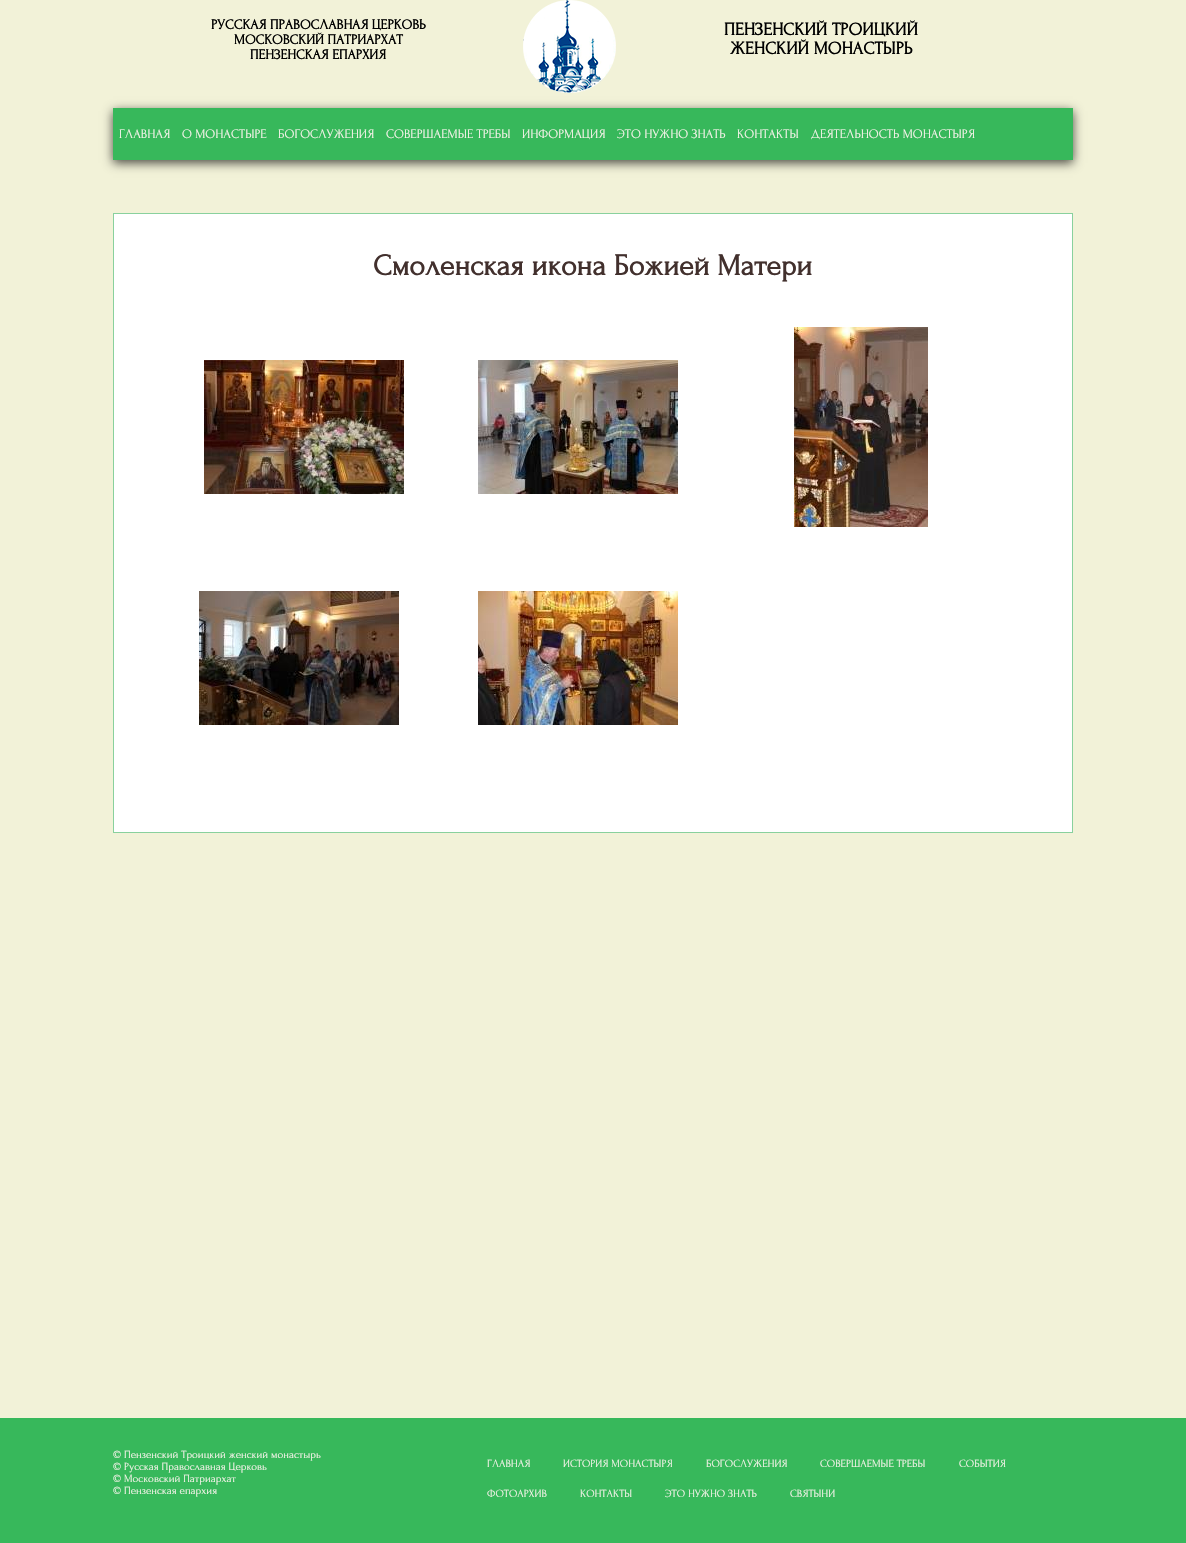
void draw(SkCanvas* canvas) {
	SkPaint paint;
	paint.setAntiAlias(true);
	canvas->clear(0xfff2f2d8);
	SkFont f1(fontMgr->matchFamilyStyle("Forum", SkFontStyle::Bold()), 14);
	f1.setSubpixel(true);
	paint.setColor(0xff000000);
	canvas->drawString("РУССКАЯ ПРАВОСЛАВНАЯ ЦЕРКОВЬ", 211, 29, f1, paint);
	canvas->drawString("МОСКОВСКИЙ ПАТРИАРХАТ", 234, 44, f1, paint);
	canvas->drawString("ПЕНЗЕНСКАЯ ЕПАРХИЯ", 250, 59, f1, paint);
	canvas->drawImageRect(SkImages::DeferredFromEncodedData(SkData::MakeFromFileName("img1.png")), SkRect::MakeXYWH(523, 0, 93, 93), SkSamplingOptions());
	SkFont f2(fontMgr->matchFamilyStyle("Forum", SkFontStyle::Bold()), 18);
	f2.setSubpixel(true);
	canvas->drawString("ПЕНЗЕНСКИЙ ТРОИЦКИЙ", 724, 35, f2, paint);
	canvas->drawString("ЖЕНСКИЙ МОНАСТЫРЬ", 730, 54, f2, paint);
	paint.setColor(0xb3000000);
	paint.setMaskFilter(SkMaskFilter::MakeBlur(kNormal_SkBlurStyle, 5));
	canvas->drawRect(SkRect::MakeXYWH(113, 111, 960, 52), paint);
	paint.setMaskFilter(nullptr);
	paint.setColor(0xff37b85b);
	canvas->drawRect(SkRect::MakeXYWH(113, 108, 960, 52), paint);
	SkFont f3(fontMgr->matchFamilyStyle("Forum", SkFontStyle::Normal()), 13);
	f3.setSubpixel(true);
	paint.setColor(0xfff9f4ec);
	canvas->drawString("ГЛАВНАЯ", 119, 138, f3, paint);
	canvas->drawString("О МОНАСТЫРЕ", 182, 138, f3, paint);
	canvas->drawString("БОГОСЛУЖЕНИЯ", 278, 138, f3, paint);
	canvas->drawString("СОВЕРШАЕМЫЕ ТРЕБЫ", 386, 138, f3, paint);
	canvas->drawString("ИНФОРМАЦИЯ", 522, 138, f3, paint);
	canvas->drawString("ЭТО НУЖНО ЗНАТЬ", 617, 138, f3, paint);
	canvas->drawString("КОНТАКТЫ", 737, 138, f3, paint);
	canvas->drawString("ДЕЯТЕЛЬНОСТЬ МОНАСТЫРЯ", 811, 138, f3, paint);
	paint.setColor(0xffffffff);
	canvas->drawRect(SkRect::MakeXYWH(113.5, 213.5, 959, 619), paint);
	paint.setStroke(true);
	paint.setStrokeWidth(1);
	paint.setColor(0xff89d19d);
	canvas->drawRect(SkRect::MakeXYWH(113.5, 213.5, 959, 619), paint);
	SkFont f4(fontMgr->matchFamilyStyle("Forum", SkFontStyle::Bold()), 30);
	f4.setSubpixel(true);
	paint.setStroke(false);
	paint.setColor(0xff42302d);
	canvas->drawString("Смоленская икона Божией Матери", 373, 275, f4, paint);
	canvas->drawImageRect(SkImages::DeferredFromEncodedData(SkData::MakeFromFileName("img2.png")), SkRect::MakeXYWH(204, 360, 200, 134), SkSamplingOptions());
	canvas->drawImageRect(SkImages::DeferredFromEncodedData(SkData::MakeFromFileName("img3.png")), SkRect::MakeXYWH(478, 360, 200, 134), SkSamplingOptions());
	canvas->drawImageRect(SkImages::DeferredFromEncodedData(SkData::MakeFromFileName("img4.png")), SkRect::MakeXYWH(794, 327, 134, 200), SkSamplingOptions());
	canvas->drawImageRect(SkImages::DeferredFromEncodedData(SkData::MakeFromFileName("img5.png")), SkRect::MakeXYWH(199, 591, 200, 134), SkSamplingOptions());
	canvas->drawImageRect(SkImages::DeferredFromEncodedData(SkData::MakeFromFileName("img6.png")), SkRect::MakeXYWH(478, 591, 200, 134), SkSamplingOptions());
	paint.setColor(0xff37b85b);
	canvas->drawRect(SkRect::MakeXYWH(0, 1418, 1186, 125), paint);
	SkFont f5(fontMgr->matchFamilyStyle("Forum", SkFontStyle::Normal()), 11);
	f5.setSubpixel(true);
	paint.setColor(0xfff9f4ec);
	canvas->drawString("© Пензенский Троицкий женский монастырь", 113, 1458, f5, paint);
	canvas->drawString("© Русская Православная Церковь", 113, 1470, f5, paint);
	canvas->drawString("© Московский Патриархат", 113, 1482, f5, paint);
	canvas->drawString("© Пензенская епархия", 113, 1494, f5, paint);
	canvas->drawString("ГЛАВНАЯ", 487, 1467, f5, paint);
	canvas->drawString("ИСТОРИЯ МОНАСТЫРЯ", 563, 1467, f5, paint);
	canvas->drawString("БОГОСЛУЖЕНИЯ", 706, 1467, f5, paint);
	canvas->drawString("СОВЕРШАЕМЫЕ ТРЕБЫ", 820, 1467, f5, paint);
	canvas->drawString("СОБЫТИЯ", 959, 1467, f5, paint);
	canvas->drawString("ФОТОАРХИВ", 487, 1497, f5, paint);
	canvas->drawString("КОНТАКТЫ", 580, 1497, f5, paint);
	canvas->drawString("ЭТО НУЖНО ЗНАТЬ", 665, 1497, f5, paint);
	canvas->drawString("СВЯТЫНИ", 790, 1497, f5, paint);
}
